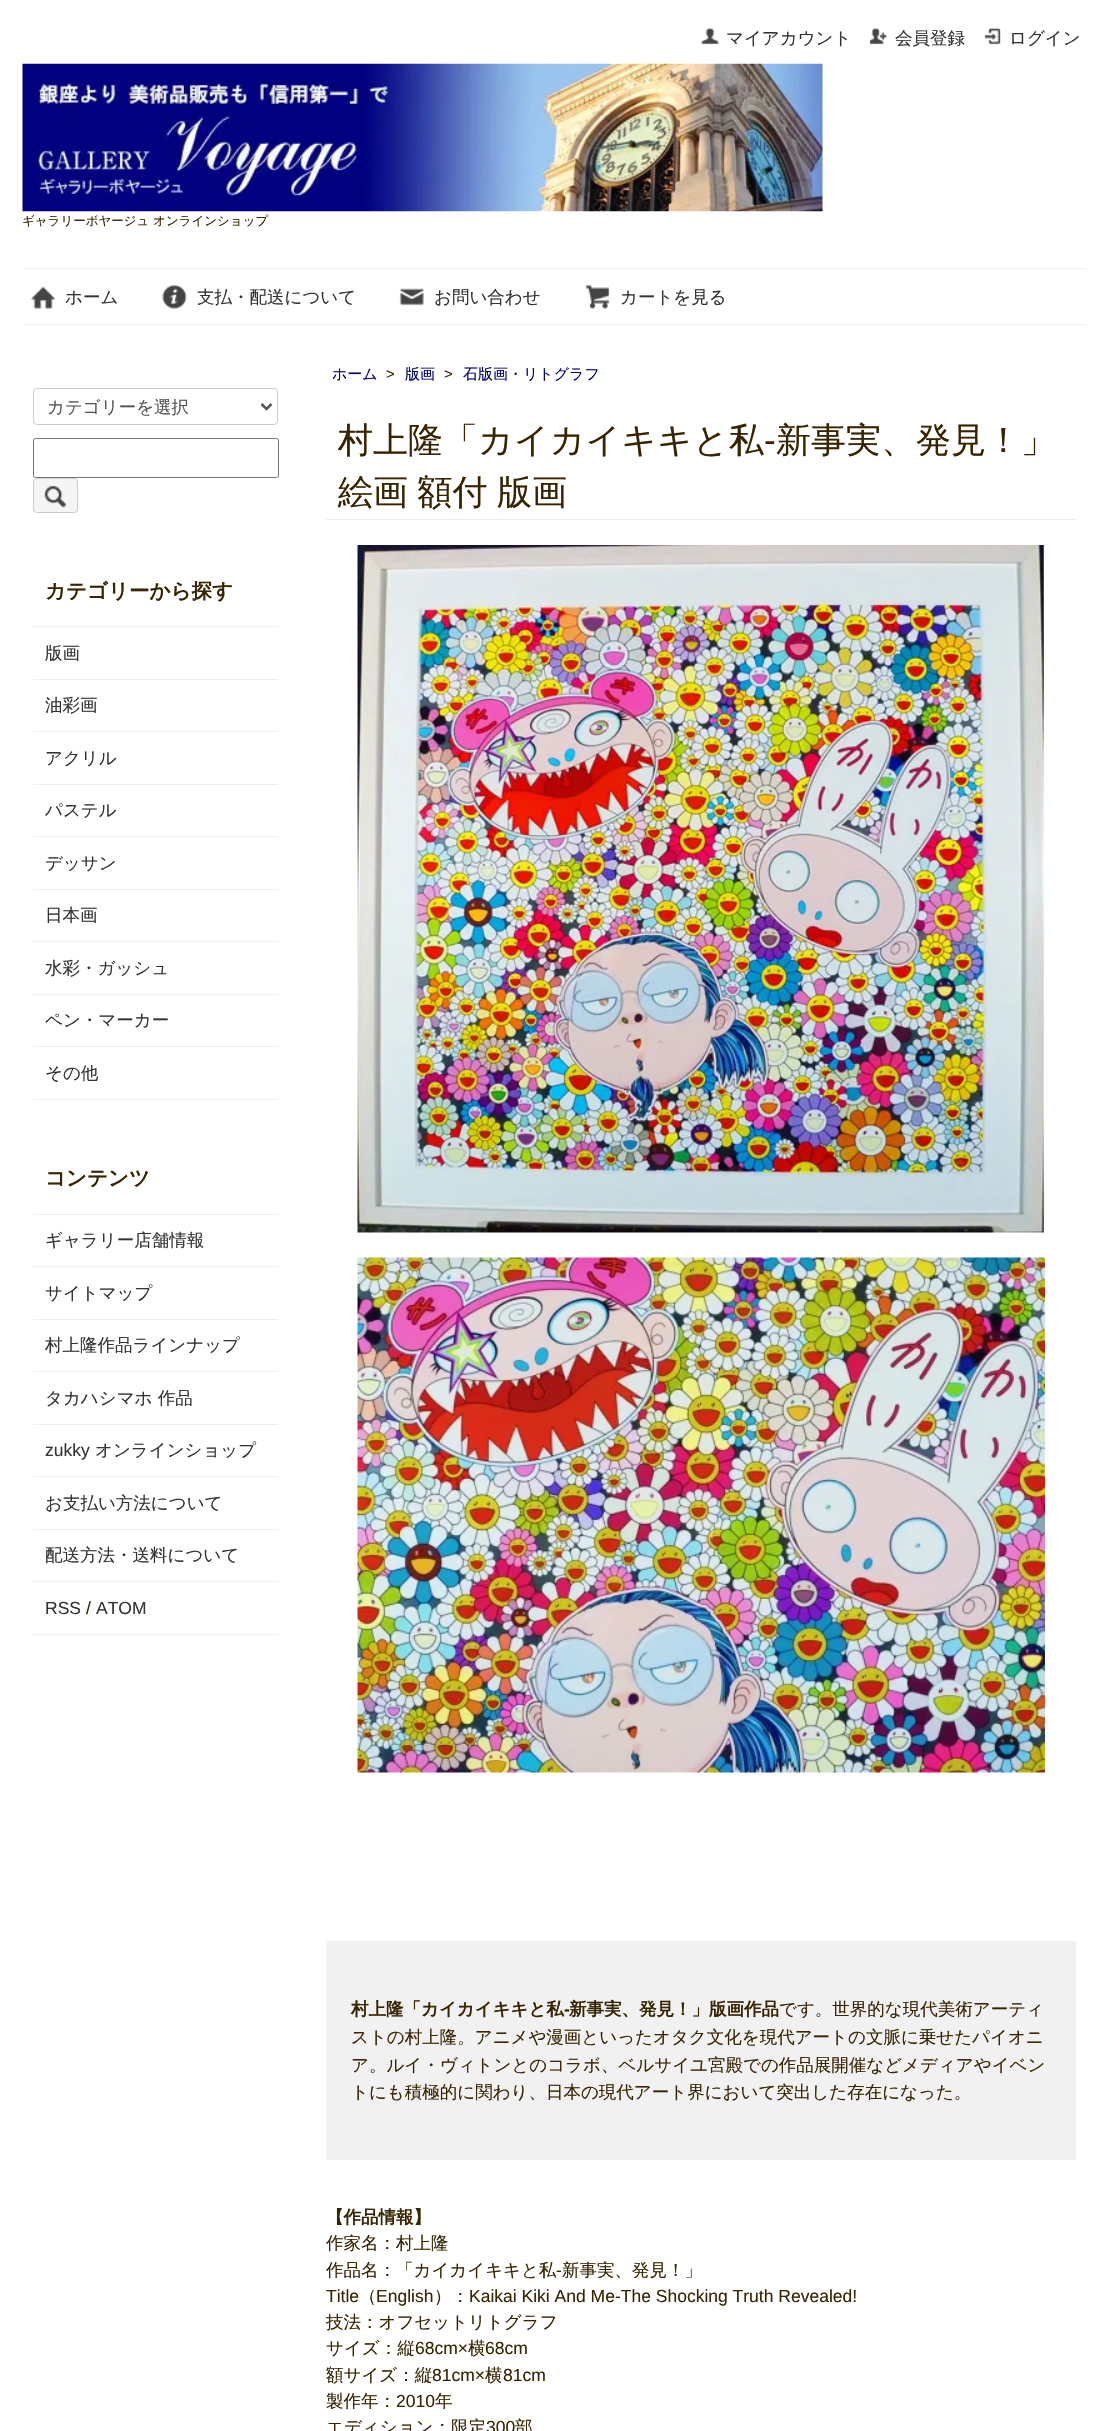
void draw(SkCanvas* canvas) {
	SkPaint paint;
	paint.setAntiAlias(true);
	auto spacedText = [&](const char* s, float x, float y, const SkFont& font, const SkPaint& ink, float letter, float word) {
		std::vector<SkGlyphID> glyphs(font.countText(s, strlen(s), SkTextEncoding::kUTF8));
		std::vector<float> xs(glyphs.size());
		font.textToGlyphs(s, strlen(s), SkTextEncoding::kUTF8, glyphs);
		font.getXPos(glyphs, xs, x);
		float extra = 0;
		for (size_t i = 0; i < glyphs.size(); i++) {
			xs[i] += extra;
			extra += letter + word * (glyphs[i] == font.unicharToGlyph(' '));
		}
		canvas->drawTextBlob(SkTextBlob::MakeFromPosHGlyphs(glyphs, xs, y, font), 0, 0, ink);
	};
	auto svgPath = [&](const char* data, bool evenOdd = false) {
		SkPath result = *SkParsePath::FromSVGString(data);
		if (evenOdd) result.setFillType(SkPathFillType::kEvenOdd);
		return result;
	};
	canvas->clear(0xffffffff);
	canvas->drawImageRect(SkImages::DeferredFromEncodedData(SkData::MakeFromFileName("img1.png")), SkRect::MakeXYWH(701, 27, 18, 18), SkSamplingOptions());
	SkFont f1(fontMgr->matchFamilyStyle("WenQuanYi Zen Hei", SkFontStyle(500, SkFontStyle::kNormal_Width, SkFontStyle::kUpright_Slant)), 17.5);
	f1.setSubpixel(true);
	paint.setColor(0xff333333);
	canvas->drawString("マイアカウント", 726, 44, f1, paint);
	canvas->drawImageRect(SkImages::DeferredFromEncodedData(SkData::MakeFromFileName("img2.png")), SkRect::MakeXYWH(869, 27, 19, 18), SkSamplingOptions());
	canvas->drawString("会員登録", 895, 44, f1, paint);
	canvas->drawImageRect(SkImages::DeferredFromEncodedData(SkData::MakeFromFileName("img3.png")), SkRect::MakeXYWH(984, 27, 17, 18), SkSamplingOptions());
	canvas->drawString("ログイン", 1009, 44, f1, paint);
	canvas->drawImageRect(SkImages::DeferredFromEncodedData(SkData::MakeFromFileName("img4.png")), SkRect::MakeXYWH(22, 63, 801, 149), SkSamplingOptions());
	SkFont f2(fontMgr->matchFamilyStyle("WenQuanYi Zen Hei", SkFontStyle(500, SkFontStyle::kNormal_Width, SkFontStyle::kUpright_Slant)), 12.5);
	f2.setSubpixel(true);
	paint.setColor(0xff382400);
	canvas->drawString("ギャラリーボヤージュ オンラインショップ", 22, 225, f2, paint);
	paint.setColor(0xffeeeeee);
	canvas->drawRect(SkRect::MakeXYWH(23, 268, 1063, 1), paint);
	canvas->drawRect(SkRect::MakeXYWH(23, 324, 1063, 1), paint);
	canvas->drawImageRect(SkImages::DeferredFromEncodedData(SkData::MakeFromFileName("img5.png")), SkRect::MakeXYWH(31, 286, 25, 23), SkSamplingOptions());
	paint.setColor(0xff333333);
	canvas->drawString("ホーム", 65, 303, f1, paint);
	canvas->drawImageRect(SkImages::DeferredFromEncodedData(SkData::MakeFromFileName("img6.png")), SkRect::MakeXYWH(162, 284, 25, 25), SkSamplingOptions());
	canvas->drawString("支払・配送について", 197, 303, f1, paint);
	canvas->drawImageRect(SkImages::DeferredFromEncodedData(SkData::MakeFromFileName("img7.png")), SkRect::MakeXYWH(399, 288, 25, 18), SkSamplingOptions());
	canvas->drawString("お問い合わせ", 434, 303, f1, paint);
	canvas->drawImageRect(SkImages::DeferredFromEncodedData(SkData::MakeFromFileName("img8.png")), SkRect::MakeXYWH(585, 284, 25, 25), SkSamplingOptions());
	canvas->drawString("カートを見る", 620, 303, f1, paint);
	paint.setStroke(true);
	paint.setStrokeWidth(1);
	paint.setColor(0xffcccccc);
	canvas->drawRoundRect(SkRect::MakeXYWH(33.5, 388.5, 244, 36), 3.5, 3.5, paint);
	paint.setStrokeWidth(2.5);
	paint.setColor(0xff555555);
	canvas->drawPath(svgPath("M261.5 404L266.5 409L271.5 404"), paint);
	paint.setStroke(false);
	canvas->drawString("カテゴリーを選択", 47, 413, f1, paint);
	paint.setStroke(true);
	paint.setStrokeWidth(1);
	paint.setColor(0xff767676);
	canvas->drawRoundRect(SkRect::MakeXYWH(33.5, 438.5, 245, 39), 2, 2, paint);
	paint.setStroke(false);
	paint.setColor(0xfff5f5f5);
	canvas->drawRoundRect(SkRect::MakeXYWH(33.5, 478.5, 44, 34), 3.5, 3.5, paint);
	paint.setStroke(true);
	paint.setColor(0xffcccccc);
	canvas->drawRoundRect(SkRect::MakeXYWH(33.5, 478.5, 44, 34), 3.5, 3.5, paint);
	canvas->drawImageRect(SkImages::DeferredFromEncodedData(SkData::MakeFromFileName("img9.png")), SkRect::MakeXYWH(44, 485, 23, 23), SkSamplingOptions());
	SkFont f3(fontMgr->matchFamilyStyle("WenQuanYi Zen Hei", SkFontStyle::Bold()), 20.5);
	f3.setSubpixel(true);
	paint.setStroke(false);
	paint.setColor(0xff382400);
	canvas->drawString("カテゴリーから探す", 45, 598, f3, paint);
	paint.setColor(0xffeeeeee);
	canvas->drawRect(SkRect::MakeXYWH(33, 1099, 245, 1), paint);
	canvas->drawRect(SkRect::MakeXYWH(33, 626, 245, 1), paint);
	paint.setColor(0xff333333);
	canvas->drawString("版画", 45, 659, f1, paint);
	paint.setColor(0xffeeeeee);
	canvas->drawRect(SkRect::MakeXYWH(33, 679, 245, 1), paint);
	paint.setColor(0xff333333);
	canvas->drawString("油彩画", 45, 711, f1, paint);
	paint.setColor(0xffeeeeee);
	canvas->drawRect(SkRect::MakeXYWH(33, 731, 245, 1), paint);
	paint.setColor(0xff333333);
	canvas->drawString("アクリル", 45, 764, f1, paint);
	paint.setColor(0xffeeeeee);
	canvas->drawRect(SkRect::MakeXYWH(33, 784, 245, 1), paint);
	paint.setColor(0xff333333);
	canvas->drawString("パステル", 45, 816, f1, paint);
	paint.setColor(0xffeeeeee);
	canvas->drawRect(SkRect::MakeXYWH(33, 836, 245, 1), paint);
	paint.setColor(0xff333333);
	canvas->drawString("デッサン", 45, 869, f1, paint);
	paint.setColor(0xffeeeeee);
	canvas->drawRect(SkRect::MakeXYWH(33, 889, 245, 1), paint);
	paint.setColor(0xff333333);
	canvas->drawString("日本画", 45, 921, f1, paint);
	paint.setColor(0xffeeeeee);
	canvas->drawRect(SkRect::MakeXYWH(33, 941, 245, 1), paint);
	paint.setColor(0xff333333);
	canvas->drawString("水彩・ガッシュ", 45, 974, f1, paint);
	paint.setColor(0xffeeeeee);
	canvas->drawRect(SkRect::MakeXYWH(33, 994, 245, 1), paint);
	paint.setColor(0xff333333);
	canvas->drawString("ペン・マーカー", 45, 1026, f1, paint);
	paint.setColor(0xffeeeeee);
	canvas->drawRect(SkRect::MakeXYWH(33, 1046, 245, 1), paint);
	paint.setColor(0xff333333);
	canvas->drawString("その他", 45, 1079, f1, paint);
	paint.setColor(0xff382400);
	canvas->drawString("コンテンツ", 45, 1185, f3, paint);
	paint.setColor(0xffeeeeee);
	canvas->drawRect(SkRect::MakeXYWH(33, 1634, 245, 1), paint);
	canvas->drawRect(SkRect::MakeXYWH(33, 1214, 245, 1), paint);
	paint.setColor(0xff333333);
	canvas->drawString("ギャラリー店舗情報", 45, 1246, f1, paint);
	paint.setColor(0xffeeeeee);
	canvas->drawRect(SkRect::MakeXYWH(33, 1266, 245, 1), paint);
	paint.setColor(0xff333333);
	canvas->drawString("サイトマップ", 45, 1299, f1, paint);
	paint.setColor(0xffeeeeee);
	canvas->drawRect(SkRect::MakeXYWH(33, 1319, 245, 1), paint);
	paint.setColor(0xff333333);
	canvas->drawString("村上隆作品ラインナップ", 45, 1351, f1, paint);
	paint.setColor(0xffeeeeee);
	canvas->drawRect(SkRect::MakeXYWH(33, 1371, 245, 1), paint);
	paint.setColor(0xff333333);
	canvas->drawString("タカハシマホ 作品", 45, 1404, f1, paint);
	paint.setColor(0xffeeeeee);
	canvas->drawRect(SkRect::MakeXYWH(33, 1424, 245, 1), paint);
	SkFont f4(fontMgr->matchFamilyStyle("Liberation Sans", SkFontStyle::Normal()), 17.5);
	f4.setSubpixel(true);
	paint.setColor(0xff333333);
	canvas->drawString("zukky", 45, 1456, f4, paint);
	canvas->drawString("オンラインショップ", 95, 1456, f1, paint);
	paint.setColor(0xffeeeeee);
	canvas->drawRect(SkRect::MakeXYWH(33, 1476, 245, 1), paint);
	paint.setColor(0xff333333);
	canvas->drawString("お支払い方法について", 45, 1509, f1, paint);
	paint.setColor(0xffeeeeee);
	canvas->drawRect(SkRect::MakeXYWH(33, 1529, 245, 1), paint);
	paint.setColor(0xff333333);
	canvas->drawString("配送方法・送料について", 45, 1561, f1, paint);
	paint.setColor(0xffeeeeee);
	canvas->drawRect(SkRect::MakeXYWH(33, 1581, 245, 1), paint);
	paint.setColor(0xff333333);
	canvas->drawString("RSS", 45, 1614, f4, paint);
	paint.setColor(0xff382400);
	canvas->drawString("/", 86, 1614, f4, paint);
	paint.setColor(0xff333333);
	canvas->drawString("ATOM", 96, 1614, f4, paint);
	SkFont f5(fontMgr->matchFamilyStyle("WenQuanYi Zen Hei", SkFontStyle(500, SkFontStyle::kNormal_Width, SkFontStyle::kUpright_Slant)), 15);
	f5.setSubpixel(true);
	paint.setColor(0xff000080);
	canvas->drawString("ホーム", 332, 379, f5, paint);
	SkFont f6(fontMgr->matchFamilyStyle("Liberation Sans", SkFontStyle::Normal()), 15);
	f6.setSubpixel(true);
	paint.setColor(0xff382400);
	canvas->drawString(">", 386, 379, f6, paint);
	paint.setColor(0xff000080);
	canvas->drawString("版画", 405, 379, f5, paint);
	paint.setColor(0xff382400);
	canvas->drawString(">", 444, 379, f6, paint);
	paint.setColor(0xff000080);
	canvas->drawString("石版画・リトグラフ", 463, 379, f5, paint);
	paint.setColor(0xffeeeeee);
	canvas->drawRect(SkRect::MakeXYWH(326, 519, 750, 1), paint);
	SkFont f7(fontMgr->matchFamilyStyle("WenQuanYi Zen Hei", SkFontStyle(500, SkFontStyle::kNormal_Width, SkFontStyle::kUpright_Slant)), 35);
	f7.setSubpixel(true);
	paint.setColor(0xff382400);
	canvas->drawString("村上隆「カイカイキキと私", 338, 452, f7, paint);
	SkFont f8(fontMgr->matchFamilyStyle("Liberation Sans", SkFontStyle::Normal()), 35);
	f8.setSubpixel(true);
	canvas->drawString("-", 764, 452, f8, paint);
	canvas->drawString("新事実、発見！」", 776, 452, f7, paint);
	spacedText("絵画 額付 版画", 338, 504, f7, paint, 0, -1);
	canvas->drawImageRect(SkImages::DeferredFromEncodedData(SkData::MakeFromFileName("img10.png")), SkRect::MakeXYWH(357, 545, 688, 688), SkSamplingOptions());
	canvas->drawImageRect(SkImages::DeferredFromEncodedData(SkData::MakeFromFileName("img11.png")), SkRect::MakeXYWH(357, 1257, 688, 516), SkSamplingOptions());
	paint.setColor(0xfff1f1f1);
	canvas->drawRect(SkRect::MakeXYWH(326, 1941, 750, 219), paint);
	SkFont f9(fontMgr->matchFamilyStyle("WenQuanYi Zen Hei", SkFontStyle::Bold()), 17.5);
	f9.setSubpixel(true);
	paint.setColor(0xff382400);
	canvas->drawString("村上隆「カイカイキキと私", 351, 2015, f9, paint);
	SkFont f10(fontMgr->matchFamilyStyle("Liberation Sans", SkFontStyle::Bold()), 17.5);
	f10.setSubpixel(true);
	canvas->drawString("-", 564, 2015, f10, paint);
	canvas->drawString("新事実、発見！」版画作品", 569, 2015, f9, paint);
	canvas->drawString("です。世界的な現代美術アーティ", 779, 2015, f1, paint);
	canvas->drawString("ストの村上隆。アニメや漫画といったオタク文化を現代アートの文脈に乗せたパイオニ", 351, 2043, f1, paint);
	canvas->drawString("ア。ルイ・ヴィトンとのコラボ、ベルサイユ宮殿での作品展開催などメディアやイベン", 351, 2071, f1, paint);
	canvas->drawString("トにも積極的に関わり、日本の現代アート界において突出した存在になった。", 351, 2098, f1, paint);
	canvas->drawString("【作品情報】", 326, 2223, f9, paint);
	canvas->drawString("作家名：村上隆", 326, 2249, f1, paint);
	canvas->drawString("作品名：「カイカイキキと私", 326, 2276, f1, paint);
	canvas->drawString("-", 556, 2276, f4, paint);
	canvas->drawString("新事実、発見！」", 562, 2276, f1, paint);
	canvas->drawString("Title", 326, 2302, f4, paint);
	canvas->drawString("（", 359, 2302, f1, paint);
	canvas->drawString("English", 376, 2302, f4, paint);
	canvas->drawString("）：", 434, 2302, f1, paint);
	canvas->drawString("Kaikai Kiki And Me-The Shocking Truth Revealed!", 469, 2302, f4, paint);
	canvas->drawString("技法：オフセットリトグラフ", 326, 2328, f1, paint);
	canvas->drawString("サイズ：縦", 326, 2354, f1, paint);
	canvas->drawString("68cm×", 415, 2354, f4, paint);
	canvas->drawString("横", 468, 2354, f1, paint);
	canvas->drawString("68cm", 485, 2354, f4, paint);
	canvas->drawString("額サイズ：縦", 326, 2381, f1, paint);
	canvas->drawString("81cm×", 432, 2381, f4, paint);
	canvas->drawString("横", 485, 2381, f1, paint);
	canvas->drawString("81cm", 503, 2381, f4, paint);
	canvas->drawString("製作年：", 326, 2407, f1, paint);
	canvas->drawString("2010", 396, 2407, f4, paint);
	canvas->drawString("年", 435, 2407, f1, paint);
	canvas->drawString("エディション：限定", 326, 2433, f1, paint);
	canvas->drawString("300", 486, 2433, f4, paint);
	canvas->drawString("部", 515, 2433, f1, paint);
}
